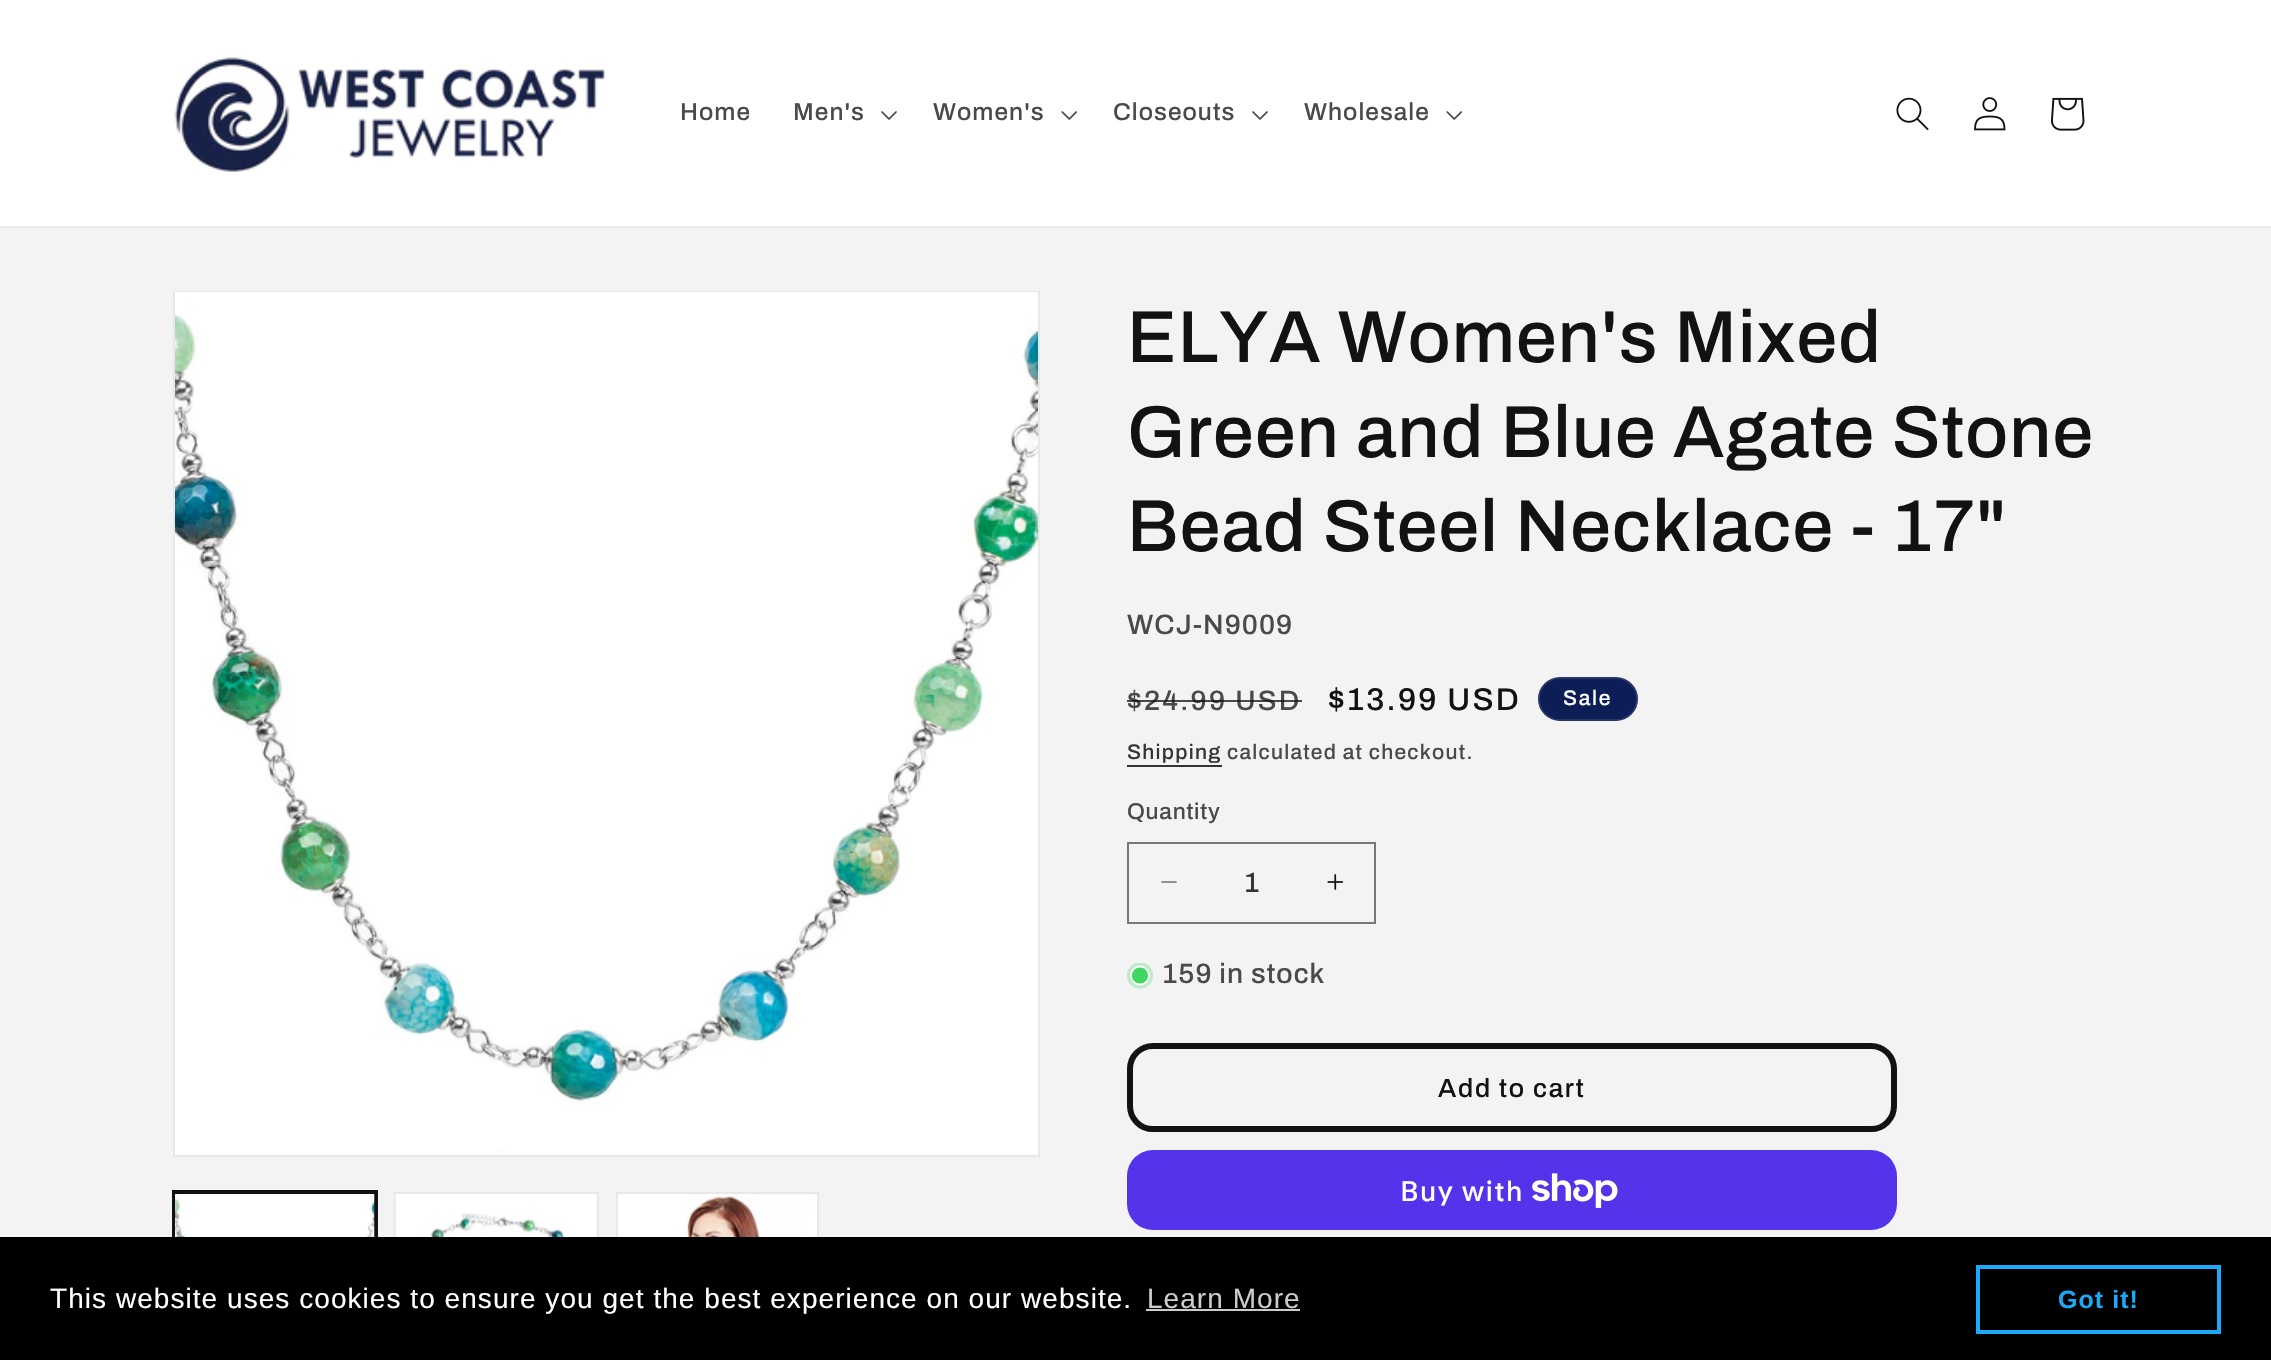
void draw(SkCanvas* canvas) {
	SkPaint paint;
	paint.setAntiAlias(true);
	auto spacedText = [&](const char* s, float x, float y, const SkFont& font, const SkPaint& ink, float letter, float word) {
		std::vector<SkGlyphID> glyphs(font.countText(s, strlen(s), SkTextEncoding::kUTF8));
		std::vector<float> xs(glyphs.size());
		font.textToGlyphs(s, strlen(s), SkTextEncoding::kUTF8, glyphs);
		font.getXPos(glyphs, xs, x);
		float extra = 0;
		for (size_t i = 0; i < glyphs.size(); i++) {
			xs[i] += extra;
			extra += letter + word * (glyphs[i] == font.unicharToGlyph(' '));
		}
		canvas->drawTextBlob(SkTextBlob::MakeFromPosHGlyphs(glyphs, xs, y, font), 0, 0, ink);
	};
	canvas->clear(0xffffffff);
	paint.setColor(0xffececec);
	canvas->drawRect(SkRect::MakeXYWH(0, 226, 2271, 2), paint);
	canvas->drawImageRect(SkImages::DeferredFromEncodedData(SkData::MakeFromFileName("img1.png")), SkRect::MakeXYWH(174, 57, 432, 115), SkSamplingOptions());
	SkFont f1(fontMgr->matchFamilyStyle("Archivo", SkFontStyle(500, SkFontStyle::kNormal_Width, SkFontStyle::kUpright_Slant)), 24.5);
	f1.setSubpixel(true);
	paint.setColor(0xff4a4a4a);
	spacedText("Home", 680, 120, f1, paint, 1.05, 0);
	spacedText("Men's", 793, 120, f1, paint, 1.05, 0);
	canvas->drawImageRect(SkImages::DeferredFromEncodedData(SkData::MakeFromFileName("img2.png")), SkRect::MakeXYWH(881, 111, 16, 9), SkSamplingOptions());
	spacedText("Women's", 933, 120, f1, paint, 1.05, 0);
	canvas->drawImageRect(SkImages::DeferredFromEncodedData(SkData::MakeFromFileName("img3.png")), SkRect::MakeXYWH(1061, 111, 16, 9), SkSamplingOptions());
	spacedText("Closeouts", 1113, 120, f1, paint, 1.05, 0);
	canvas->drawImageRect(SkImages::DeferredFromEncodedData(SkData::MakeFromFileName("img2.png")), SkRect::MakeXYWH(1252, 111, 16, 9), SkSamplingOptions());
	spacedText("Wholesale", 1304, 120, f1, paint, 1.05, 0);
	canvas->drawImageRect(SkImages::DeferredFromEncodedData(SkData::MakeFromFileName("img3.png")), SkRect::MakeXYWH(1446, 111, 16, 9), SkSamplingOptions());
	canvas->drawImageRect(SkImages::DeferredFromEncodedData(SkData::MakeFromFileName("img4.png")), SkRect::MakeXYWH(1896, 97, 33, 34), SkSamplingOptions());
	canvas->drawImageRect(SkImages::DeferredFromEncodedData(SkData::MakeFromFileName("img5.png")), SkRect::MakeXYWH(1974, 97, 32, 34), SkSamplingOptions());
	canvas->drawImageRect(SkImages::DeferredFromEncodedData(SkData::MakeFromFileName("img6.png")), SkRect::MakeXYWH(2051, 97, 34, 34), SkSamplingOptions());
	paint.setColor(0xfff3f3f3);
	canvas->drawRect(SkRect::MakeXYWH(0, 228, 2271, 1009), paint);
	paint.setStroke(true);
	paint.setStrokeWidth(2);
	paint.setColor(0xffe8e8e8);
	canvas->drawRect(SkRect::MakeXYWH(174, 292, 865, 864), paint);
	canvas->drawImageRect(SkImages::DeferredFromEncodedData(SkData::MakeFromFileName("img7.png")), SkRect::MakeXYWH(175, 292, 863, 863), SkSamplingOptions());
	paint.setColor(0xff121212);
	canvas->drawRect(SkRect::MakeXYWH(173, 1191, 204, 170), paint);
	canvas->drawRect(SkRect::MakeXYWH(174, 1193, 201, 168), paint);
	canvas->drawImageRect(SkImages::DeferredFromEncodedData(SkData::MakeFromFileName("img8.png")), SkRect::MakeXYWH(175, 1194, 200, 43), SkSamplingOptions());
	paint.setColor(0xffe8e8e8);
	canvas->drawRect(SkRect::MakeXYWH(395, 1193, 203, 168), paint);
	canvas->drawImageRect(SkImages::DeferredFromEncodedData(SkData::MakeFromFileName("img9.png")), SkRect::MakeXYWH(395, 1194, 202, 43), SkSamplingOptions());
	canvas->drawRect(SkRect::MakeXYWH(617, 1193, 201, 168), paint);
	canvas->drawImageRect(SkImages::DeferredFromEncodedData(SkData::MakeFromFileName("img10.png")), SkRect::MakeXYWH(618, 1194, 199, 43), SkSamplingOptions());
	SkFont f2(fontMgr->matchFamilyStyle("Archivo", SkFontStyle(500, SkFontStyle::kNormal_Width, SkFontStyle::kUpright_Slant)), 73.5);
	f2.setSubpixel(true);
	paint.setStroke(false);
	paint.setColor(0xff121212);
	spacedText("ELYA Women's Mixed", 1127, 362, f2, paint, 1.1, 0);
	spacedText("Green and Blue Agate Stone", 1127, 457, f2, paint, 1.1, 0);
	spacedText("Bead Steel Necklace - 17\"", 1127, 551, f2, paint, 1.1, 0);
	SkFont f3(fontMgr->matchFamilyStyle("Archivo", SkFontStyle(500, SkFontStyle::kNormal_Width, SkFontStyle::kUpright_Slant)), 28);
	f3.setSubpixel(true);
	paint.setColor(0xff4a4a4a);
	spacedText("WCJ-N9009", 1127, 634, f3, paint, 1.05, 0);
	spacedText("$24.99 USD", 1127, 710, f3, paint, 2.25, 0);
	paint.setColor(0xbf121212);
	canvas->drawRect(SkRect::MakeXYWH(1127, 700, 175, 2), paint);
	SkFont f4(fontMgr->matchFamilyStyle("Archivo", SkFontStyle(500, SkFontStyle::kNormal_Width, SkFontStyle::kUpright_Slant)), 31.5);
	f4.setSubpixel(true);
	paint.setColor(0xff121212);
	spacedText("$13.99 USD", 1328, 710, f4, paint, 2.25, 0);
	paint.setColor(0xff0d1d56);
	canvas->drawRoundRect(SkRect::MakeXYWH(1538, 677, 100, 44), 22, 22, paint);
	paint.setStroke(true);
	paint.setColor(0x1affffff);
	canvas->drawRoundRect(SkRect::MakeXYWH(1539, 678, 98, 42), 21, 21, paint);
	SkFont f5(fontMgr->matchFamilyStyle("Archivo", SkFontStyle(500, SkFontStyle::kNormal_Width, SkFontStyle::kUpright_Slant)), 21);
	f5.setSubpixel(true);
	paint.setStroke(false);
	paint.setColor(0xffffffff);
	spacedText("Sale", 1563, 705, f5, paint, 1.75, 0);
	paint.setColor(0xff343434);
	spacedText("Shipping", 1127, 759, f5, paint, 1.25, 0);
	canvas->drawRect(SkRect::MakeXYWH(1127, 765, 95, 2), paint);
	paint.setColor(0xff4a4a4a);
	spacedText("calculated at checkout.", 1227, 759, f5, paint, 1.25, 0);
	SkFont f6(fontMgr->matchFamilyStyle("Archivo", SkFontStyle(500, SkFontStyle::kNormal_Width, SkFontStyle::kUpright_Slant)), 22.75);
	f6.setSubpixel(true);
	spacedText("Quantity", 1127, 819, f6, paint, 0.75, 0);
	canvas->drawImageRect(SkImages::DeferredFromEncodedData(SkData::MakeFromFileName("img11.png")), SkRect::MakeXYWH(1161, 881, 16, 2), SkSamplingOptions());
	canvas->drawImageRect(SkImages::DeferredFromEncodedData(SkData::MakeFromFileName("img12.png")), SkRect::MakeXYWH(1327, 874, 17, 16), SkSamplingOptions());
	paint.setStroke(true);
	paint.setColor(0xff777777);
	canvas->drawRect(SkRect::MakeXYWH(1128, 843, 247, 80), paint);
	paint.setStroke(false);
	paint.setColor(0xff343434);
	canvas->drawString("1", 1244, 892, f3, paint);
	canvas->save();
	canvas->clipRect(SkRect::MakeXYWH(1127, 963, 26, 26));
	paint.setColor(0xffbdeac7);
	canvas->drawCircle(1140, 975.5, 13, paint);
	canvas->restore();
	paint.setColor(0xff3ed660);
	canvas->drawCircle(1140, 975.5, 9, paint);
	paint.setStroke(true);
	paint.setStrokeWidth(1.8);
	paint.setColor(0xffffffff);
	canvas->drawCircle(1140, 975.5, 9, paint);
	paint.setStroke(false);
	paint.setColor(0xff4a4a4a);
	spacedText("159 in stock", 1162, 983, f3, paint, 1.05, 0);
	paint.setStroke(true);
	paint.setStrokeWidth(6);
	paint.setColor(0xff121212);
	canvas->drawRoundRect(SkRect::MakeXYWH(1130, 1046, 764, 83), 23, 23, paint);
	SkFont f7(fontMgr->matchFamilyStyle("Archivo", SkFontStyle(500, SkFontStyle::kNormal_Width, SkFontStyle::kUpright_Slant)), 26.25);
	f7.setSubpixel(true);
	paint.setStroke(false);
	spacedText("Add to cart", 1438, 1097, f7, paint, 1.75, 0);
	paint.setColor(0xff5433eb);
	canvas->drawRoundRect(SkRect::MakeXYWH(1127, 1150, 770, 80), 26, 26, paint);
	SkFont f8(fontMgr->matchFamilyStyle("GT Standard", SkFontStyle(500, SkFontStyle::kNormal_Width, SkFontStyle::kUpright_Slant)), 28);
	f8.setSubpixel(true);
	paint.setColor(0xffffffff);
	spacedText("Buy with", 1400, 1201, f8, paint, 1.05, 0);
	canvas->drawImageRect(SkImages::DeferredFromEncodedData(SkData::MakeFromFileName("img13.png")), SkRect::MakeXYWH(1532, 1173, 86, 35), SkSamplingOptions());
	paint.setColor(0xff000000);
	canvas->drawRect(SkRect::MakeXYWH(0, 1237, 2271, 123), paint);
	SkFont f9(fontMgr->matchFamilyStyle("Liberation Sans", SkFontStyle::Normal()), 28);
	f9.setSubpixel(true);
	paint.setColor(0xffffffff);
	spacedText("This website uses cookies to ensure you get the best experience on our website.", 50, 1308, f9, paint, 1.05, 0);
	paint.setColor(0xffcccccc);
	spacedText("Learn More", 1147, 1308, f9, paint, 1.05, 0);
	canvas->drawRect(SkRect::MakeXYWH(1146, 1309, 154, 2), paint);
	paint.setStroke(true);
	paint.setStrokeWidth(4);
	paint.setColor(0xff1ca9f8);
	canvas->drawRect(SkRect::MakeXYWH(1978, 1267, 241, 65), paint);
	SkFont f10(fontMgr->matchFamilyStyle("Liberation Sans", SkFontStyle::Bold()), 25);
	f10.setSubpixel(true);
	paint.setStroke(false);
	spacedText("Got it!", 2058, 1308, f10, paint, 1.05, 0);
}
